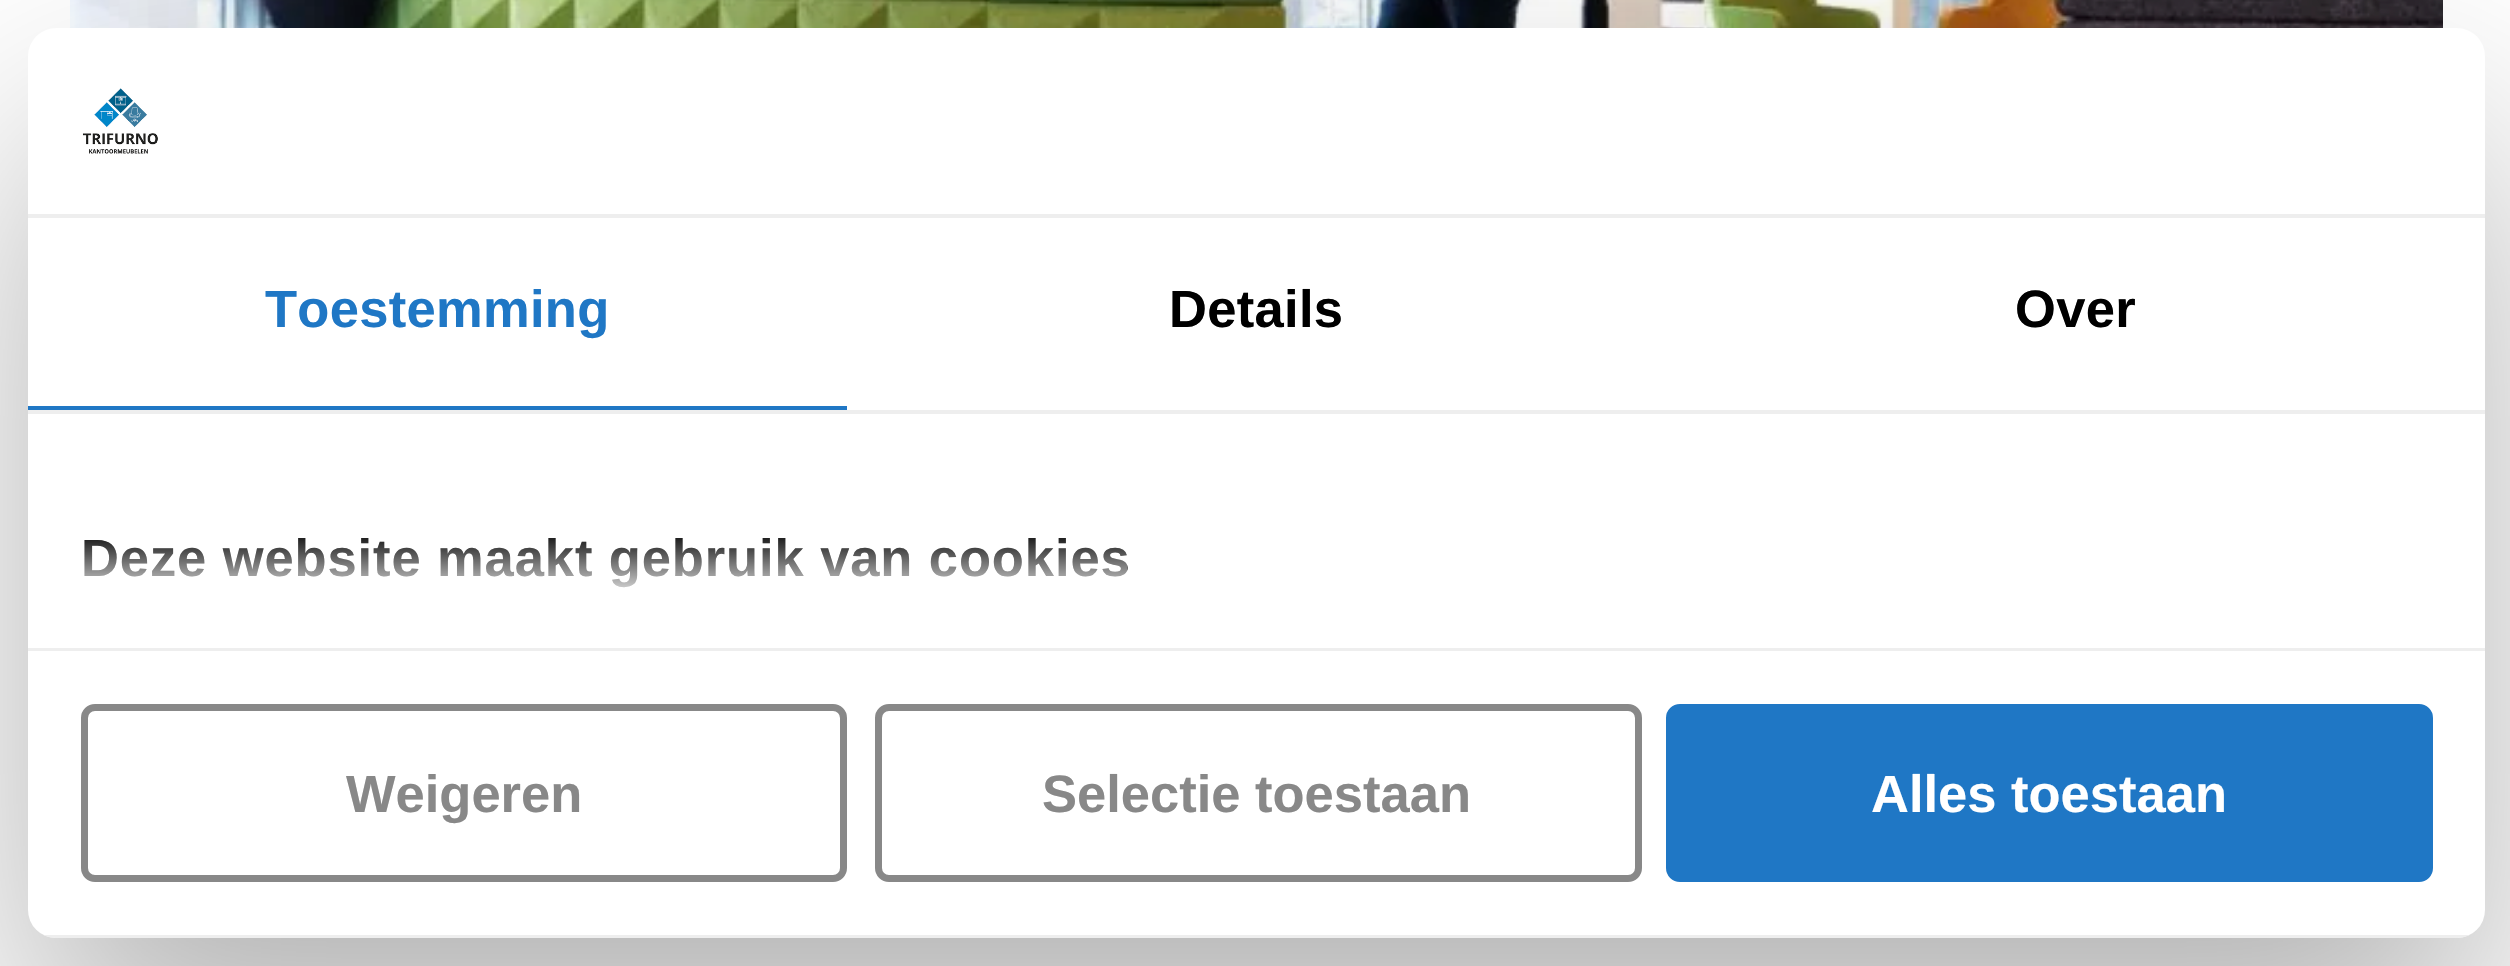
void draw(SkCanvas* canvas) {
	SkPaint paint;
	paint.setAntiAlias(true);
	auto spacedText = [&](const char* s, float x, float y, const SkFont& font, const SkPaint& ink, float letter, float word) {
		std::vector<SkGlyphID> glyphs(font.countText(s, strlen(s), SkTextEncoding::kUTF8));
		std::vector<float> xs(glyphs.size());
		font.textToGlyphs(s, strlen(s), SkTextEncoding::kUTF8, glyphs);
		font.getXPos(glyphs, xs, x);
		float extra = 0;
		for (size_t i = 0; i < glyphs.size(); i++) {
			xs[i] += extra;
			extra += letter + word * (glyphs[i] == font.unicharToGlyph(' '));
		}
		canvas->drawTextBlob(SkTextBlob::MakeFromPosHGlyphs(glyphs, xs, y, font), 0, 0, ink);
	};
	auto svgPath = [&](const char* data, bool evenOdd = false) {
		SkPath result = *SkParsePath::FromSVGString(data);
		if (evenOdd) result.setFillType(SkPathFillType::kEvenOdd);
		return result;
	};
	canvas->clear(0xffffffff);
	canvas->drawImageRect(SkImages::DeferredFromEncodedData(SkData::MakeFromFileName("img1.png")), SkRect::MakeXYWH(70, 0, 2373, 28), SkSamplingOptions());
	paint.setColor(0x4d000000);
	paint.setMaskFilter(SkMaskFilter::MakeBlur(kNormal_SkBlurStyle, 119));
	canvas->drawRoundRect(SkRect::MakeXYWH(28, 140, 2457, 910), 28, 28, paint);
	paint.setMaskFilter(nullptr);
	paint.setColor(0xffffffff);
	canvas->drawRoundRect(SkRect::MakeXYWH(28, 28, 2457, 910), 28, 28, paint);
	paint.setColor(0xffeeeeee);
	canvas->drawRect(SkRect::MakeXYWH(28, 214, 2457, 4), paint);
	canvas->drawImageRect(SkImages::DeferredFromEncodedData(SkData::MakeFromFileName("img2.png")), SkRect::MakeXYWH(82, 88, 76, 66), SkSamplingOptions());
	canvas->drawRect(SkRect::MakeXYWH(28, 410, 2457, 4), paint);
	paint.setColor(0xff1f77c5);
	canvas->drawRect(SkRect::MakeXYWH(28, 406, 819, 4), paint);
	SkFont f1(fontMgr->matchFamilyStyle("Liberation Sans", SkFontStyle::Bold()), 52.5);
	f1.setSubpixel(true);
	spacedText("Toestemming", 265, 327, f1, paint, 0.3, 0);
	paint.setColor(0xff000000);
	spacedText("Details", 1169, 327, f1, paint, 0.3, 0);
	spacedText("Over", 2015, 327, f1, paint, 0.3, 0);
	paint.setColor(0xffeeeeee);
	canvas->drawRect(SkRect::MakeXYWH(28, 648, 2457, 3), paint);
	paint.setColor(0xff000000);
	spacedText("Deze website maakt gebruik van cookies", 81, 576, f1, paint, 0.9, 0);
	{
		const SkColor colors[] = {0xffffffff, 0xccffffff, 0x00ffffff};
		const float stops[] = {0, 0.5, 1};
		const SkPoint ends[] = {{1234, 648}, {1234, 529}};
		paint.setShader(SkGradientShader::MakeLinear(ends, colors, stops, 3, SkTileMode::kClamp));
		paint.setAlpha(255);
	}
	canvas->drawRect(SkRect::MakeXYWH(84, 538, 1043, 50), paint);
	canvas->save();
	canvas->clipPath(svgPath("M56 28H2457C2472.5 28 2485 40.5 2485 56V910C2485 925.5 2472.5 938 2457 938H56C40.5 938 28 925.5 28 910V56C28 40.5 40.5 28 56 28Z"), true);
	paint.setShader(nullptr);
	paint.setColor(0xffeeeeee);
	canvas->drawRect(SkRect::MakeXYWH(43, 935, 2427, 3), paint);
	canvas->restore();
	paint.setStroke(true);
	paint.setStrokeWidth(7);
	paint.setColor(0xff888888);
	canvas->drawRoundRect(SkRect::MakeXYWH(84.5, 707.5, 759, 171), 10.5, 10.5, paint);
	paint.setStroke(false);
	canvas->drawString("Weigeren", 346, 812, f1, paint);
	paint.setStroke(true);
	canvas->drawRoundRect(SkRect::MakeXYWH(878.5, 707.5, 760, 171), 10.5, 10.5, paint);
	paint.setStroke(false);
	canvas->drawString("Selectie toestaan", 1042, 812, f1, paint);
	paint.setColor(0xff1f77c5);
	canvas->drawRoundRect(SkRect::MakeXYWH(1669.5, 707.5, 760, 171), 10.5, 10.5, paint);
	paint.setStroke(true);
	canvas->drawRoundRect(SkRect::MakeXYWH(1669.5, 707.5, 760, 171), 10.5, 10.5, paint);
	paint.setStroke(false);
	paint.setColor(0xffffffff);
	canvas->drawString("Alles toestaan", 1871, 812, f1, paint);
}
